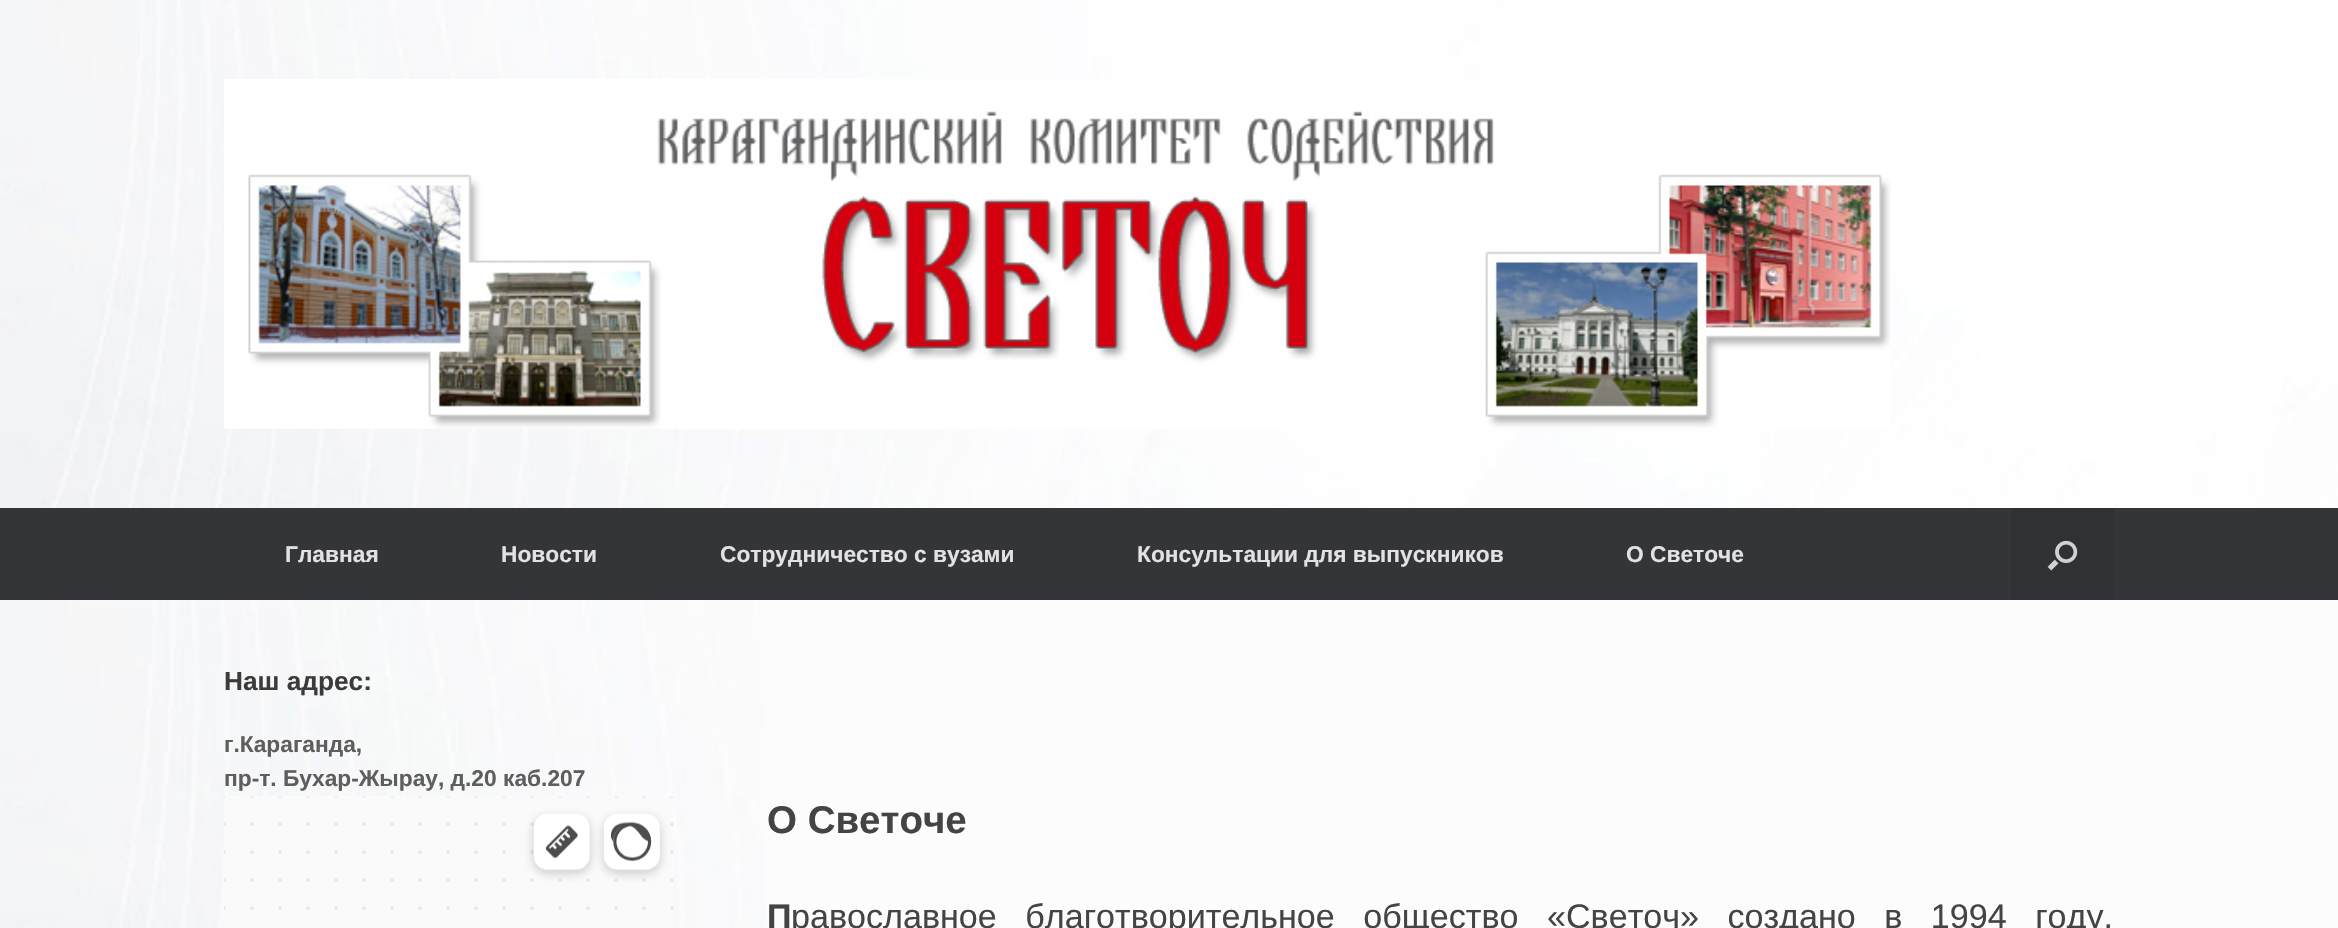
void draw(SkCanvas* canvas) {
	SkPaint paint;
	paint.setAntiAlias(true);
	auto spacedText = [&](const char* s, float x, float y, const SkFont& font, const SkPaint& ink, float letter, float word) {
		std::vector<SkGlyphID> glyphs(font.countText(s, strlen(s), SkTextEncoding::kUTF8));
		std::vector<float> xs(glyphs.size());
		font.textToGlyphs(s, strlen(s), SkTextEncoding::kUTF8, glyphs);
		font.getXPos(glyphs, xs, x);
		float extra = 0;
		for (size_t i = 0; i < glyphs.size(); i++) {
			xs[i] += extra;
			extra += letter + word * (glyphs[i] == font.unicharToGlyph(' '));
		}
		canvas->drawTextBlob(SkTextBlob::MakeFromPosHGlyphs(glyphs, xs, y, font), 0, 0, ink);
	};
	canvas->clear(0xffffffff);
	canvas->drawImageRect(SkImages::DeferredFromEncodedData(SkData::MakeFromFileName("img1.png")), SkRect::MakeXYWH(0, 0, 2338, 508), SkSamplingOptions());
	canvas->drawImageRect(SkImages::DeferredFromEncodedData(SkData::MakeFromFileName("img2.png")), SkRect::MakeXYWH(224, 79, 1667, 350), SkSamplingOptions());
	paint.setColor(0xff343538);
	canvas->drawRect(SkRect::MakeXYWH(0, 508, 2338, 92), paint);
	SkFont f1(fontMgr->matchFamilyStyle("Liberation Sans", SkFontStyle::Bold()), 22.75);
	f1.setSubpixel(true);
	paint.setColor(0xffe2e2e2);
	canvas->drawString("Главная", 285, 562, f1, paint);
	canvas->drawString("Новости", 501, 562, f1, paint);
	canvas->drawString("Сотрудничество с вузами", 720, 562, f1, paint);
	canvas->drawString("Консультации для выпускников", 1137, 562, f1, paint);
	canvas->drawString("О Светоче", 1626, 562, f1, paint);
	paint.setColor(0xff303134);
	canvas->drawRect(SkRect::MakeXYWH(2011, 508, 103, 92), paint);
	canvas->drawImageRect(SkImages::DeferredFromEncodedData(SkData::MakeFromFileName("img3.png")), SkRect::MakeXYWH(2047, 540, 31, 31), SkSamplingOptions());
	paint.setColor(0xfffcfcfc);
	canvas->drawRect(SkRect::MakeXYWH(0, 600, 2338, 328), paint);
	canvas->drawImageRect(SkImages::DeferredFromEncodedData(SkData::MakeFromFileName("img4.png")), SkRect::MakeXYWH(0, 600, 765, 328), SkSamplingOptions());
	SkFont f2(fontMgr->matchFamilyStyle("Liberation Sans", SkFontStyle::Bold()), 26.25);
	f2.setSubpixel(true);
	paint.setColor(0xff3b3b3b);
	canvas->drawString("Наш адрес:", 224, 690, f2, paint);
	paint.setColor(0xff5e5e5e);
	canvas->drawString("г.Караганда,", 224, 752, f1, paint);
	canvas->drawString("пр-т. Бухар-Жырау, д.20 каб.207", 224, 786, f1, paint);
	canvas->drawImageRect(SkImages::DeferredFromEncodedData(SkData::MakeFromFileName("img5.png")), SkRect::MakeXYWH(224, 796, 450, 132), SkSamplingOptions());
	SkFont f3(fontMgr->matchFamilyStyle("Liberation Sans", SkFontStyle::Bold()), 38.5);
	f3.setSubpixel(true);
	paint.setColor(0xff444444);
	canvas->drawString("О Светоче", 767, 833, f3, paint);
	SkFont f4(fontMgr->matchFamilyStyle("Liberation Sans", SkFontStyle::Bold()), 34.1);
	f4.setSubpixel(true);
	canvas->drawString("П", 767, 928, f4, paint);
	SkFont f5(fontMgr->matchFamilyStyle("Liberation Sans", SkFontStyle::Normal()), 34.1);
	f5.setSubpixel(true);
	spacedText("равославное благотворительное общество «Светоч» создано в 1994 году.", 791, 928, f5, paint, 0, 19);
}
